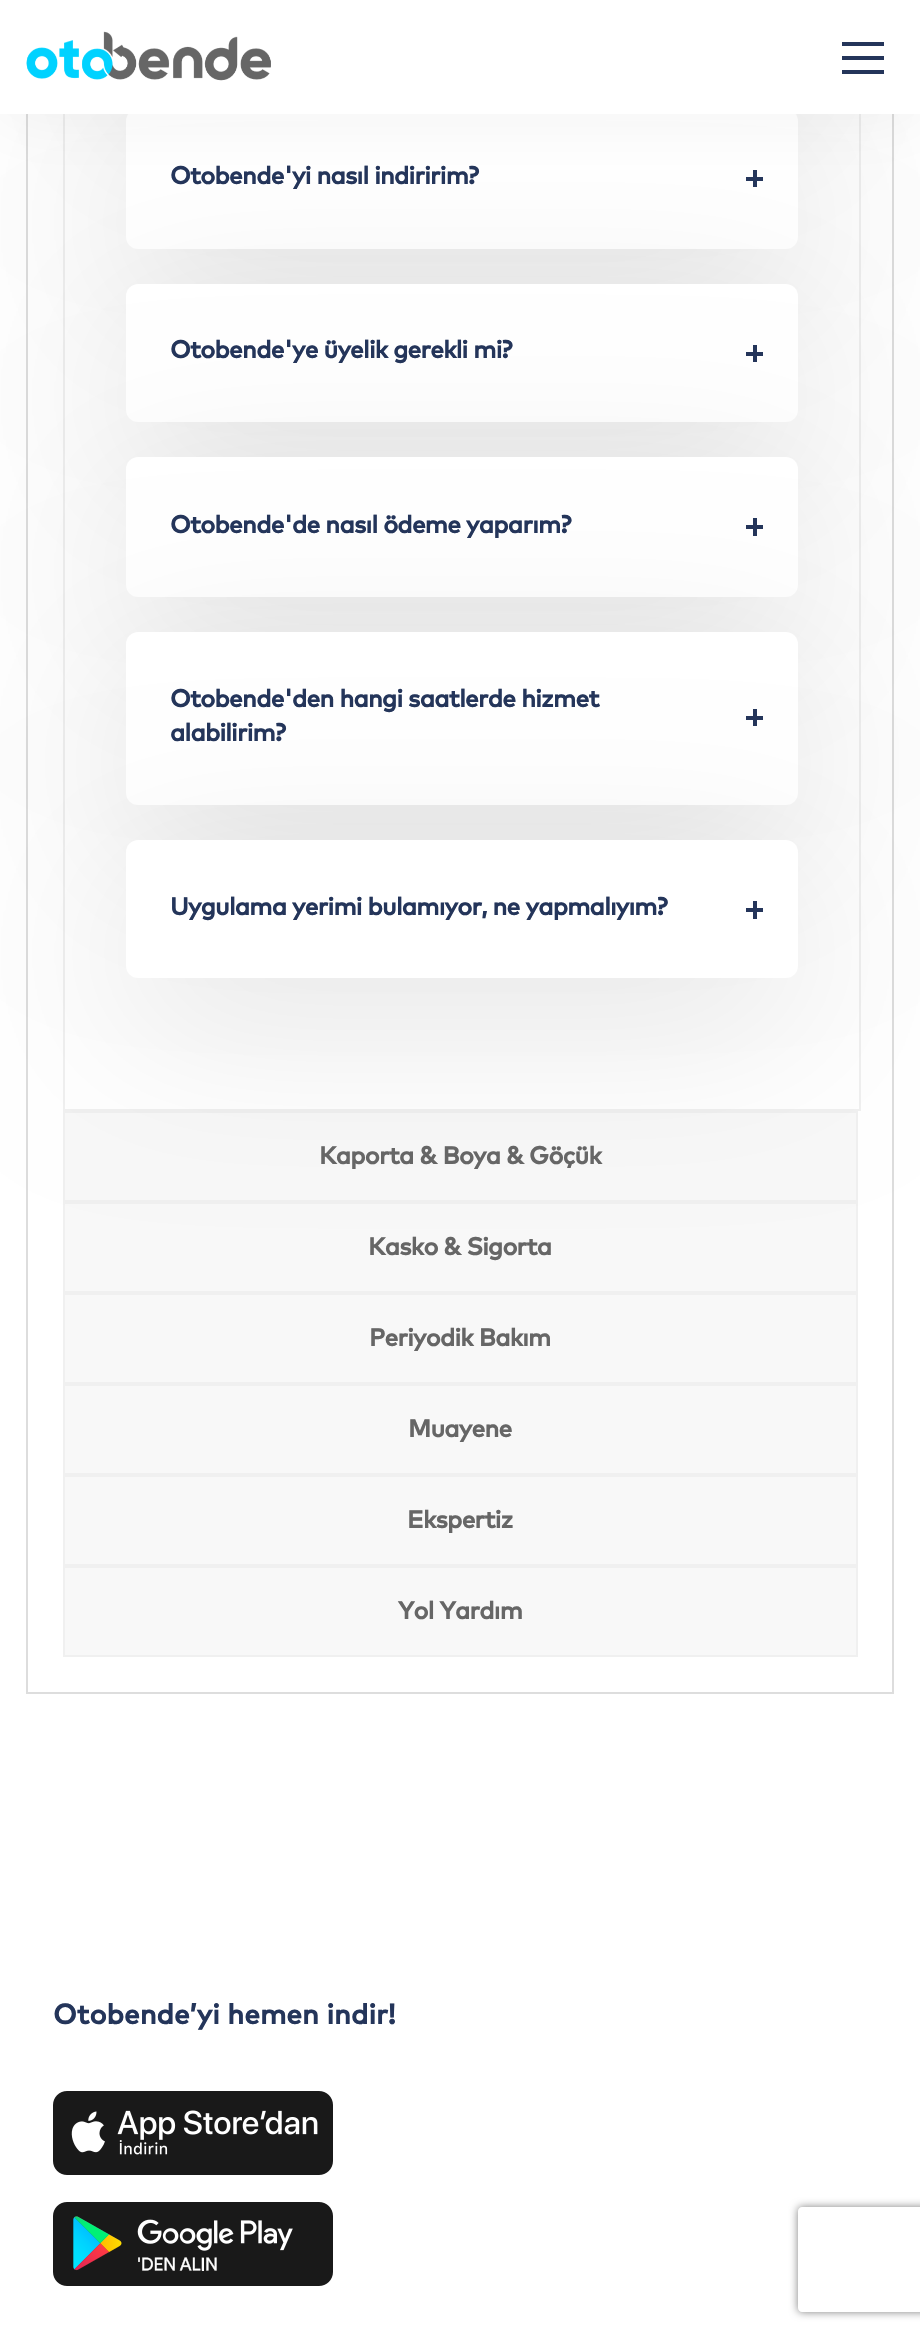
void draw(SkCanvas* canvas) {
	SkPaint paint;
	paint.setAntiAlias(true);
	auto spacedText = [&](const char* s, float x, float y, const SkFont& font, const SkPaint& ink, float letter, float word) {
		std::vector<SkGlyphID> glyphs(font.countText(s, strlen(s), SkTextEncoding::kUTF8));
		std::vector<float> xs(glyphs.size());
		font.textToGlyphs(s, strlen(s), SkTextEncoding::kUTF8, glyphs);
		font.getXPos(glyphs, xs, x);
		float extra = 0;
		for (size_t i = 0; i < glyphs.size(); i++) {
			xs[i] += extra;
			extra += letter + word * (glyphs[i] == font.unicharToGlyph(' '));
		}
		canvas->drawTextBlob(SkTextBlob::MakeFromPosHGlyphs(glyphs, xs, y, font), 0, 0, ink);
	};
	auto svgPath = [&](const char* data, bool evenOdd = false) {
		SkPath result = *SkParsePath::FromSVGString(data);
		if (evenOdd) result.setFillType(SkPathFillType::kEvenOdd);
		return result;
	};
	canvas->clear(0xffffffff);
	paint.setStroke(true);
	paint.setStrokeWidth(2);
	paint.setColor(0xffdddddd);
	canvas->drawRect(SkRect::MakeXYWH(27, -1, 866, 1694), paint);
	paint.setColor(0xfff0f0f0);
	canvas->drawRect(SkRect::MakeXYWH(64, -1, 796, 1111), paint);
	paint.setStroke(false);
	paint.setColor(0x1a000000);
	paint.setMaskFilter(SkMaskFilter::MakeBlur(kNormal_SkBlurStyle, 86));
	canvas->drawRoundRect(SkRect::MakeXYWH(126, -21, 672, 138), 12, 12, paint);
	paint.setMaskFilter(nullptr);
	paint.setMaskFilter(SkMaskFilter::MakeBlur(kNormal_SkBlurStyle, 86));
	canvas->drawRoundRect(SkRect::MakeXYWH(126, 152, 672, 140), 12, 12, paint);
	paint.setMaskFilter(nullptr);
	paint.setColor(0xffffffff);
	canvas->drawRoundRect(SkRect::MakeXYWH(126, 109, 672, 140), 12, 12, paint);
	paint.setColor(0x1a000000);
	paint.setMaskFilter(SkMaskFilter::MakeBlur(kNormal_SkBlurStyle, 86));
	canvas->drawRoundRect(SkRect::MakeXYWH(126, 327, 672, 139), 12, 12, paint);
	paint.setMaskFilter(nullptr);
	paint.setColor(0xff24355a);
	canvas->drawRect(SkRect::MakeXYWH(746, 177, 17, 4), paint);
	canvas->drawRect(SkRect::MakeXYWH(753, 170, 4, 17), paint);
	paint.setColor(0x0d0f0f0f);
	paint.setMaskFilter(SkMaskFilter::MakeBlur(kNormal_SkBlurStyle, 35));
	canvas->drawRect(SkRect::MakeXYWH(0, 4, 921, 113), paint);
	paint.setMaskFilter(nullptr);
	paint.setColor(0xffffffff);
	canvas->drawRect(SkRect::MakeXYWH(0, 0, 920, 114), paint);
	canvas->drawImageRect(SkImages::DeferredFromEncodedData(SkData::MakeFromFileName("img1.png")), SkRect::MakeXYWH(26, 31, 245, 50), SkSamplingOptions());
	paint.setColor(0xff24355a);
	canvas->drawRect(SkRect::MakeXYWH(842, 70, 42, 4), paint);
	canvas->drawRect(SkRect::MakeXYWH(842, 42, 42, 4), paint);
	canvas->drawRect(SkRect::MakeXYWH(842, 56, 42, 4), paint);
	SkFont f1(fontMgr->matchFamilyStyle("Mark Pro", SkFontStyle::Bold()), 24.5);
	f1.setSubpixel(true);
	spacedText("Otobende'yi nasıl indiririm?", 170, 184, f1, paint, -0.75, 0);
	paint.setColor(0xffffffff);
	canvas->drawRoundRect(SkRect::MakeXYWH(126, 284, 672, 138), 12, 12, paint);
	paint.setColor(0x1a000000);
	paint.setMaskFilter(SkMaskFilter::MakeBlur(kNormal_SkBlurStyle, 86));
	canvas->drawRoundRect(SkRect::MakeXYWH(126, 501, 672, 140), 12, 12, paint);
	paint.setMaskFilter(nullptr);
	paint.setColor(0xff24355a);
	spacedText("Otobende'ye üyelik gerekli mi?", 170, 358, f1, paint, -0.75, 0);
	canvas->drawRect(SkRect::MakeXYWH(746, 352, 17, 4), paint);
	canvas->drawRect(SkRect::MakeXYWH(753, 345, 4, 17), paint);
	paint.setColor(0xffffffff);
	canvas->drawRoundRect(SkRect::MakeXYWH(126, 457, 672, 140), 12, 12, paint);
	paint.setColor(0x1a000000);
	paint.setMaskFilter(SkMaskFilter::MakeBlur(kNormal_SkBlurStyle, 86));
	canvas->drawRoundRect(SkRect::MakeXYWH(126, 676, 672, 173), 12, 12, paint);
	paint.setMaskFilter(nullptr);
	paint.setColor(0xff24355a);
	spacedText("Otobende'de nasıl ödeme yaparım?", 170, 533, f1, paint, -0.75, 0);
	canvas->drawRect(SkRect::MakeXYWH(746, 525, 17, 4), paint);
	canvas->drawRect(SkRect::MakeXYWH(753, 518, 4, 18), paint);
	paint.setColor(0xffffffff);
	canvas->drawRoundRect(SkRect::MakeXYWH(126, 632, 672, 173), 12, 12, paint);
	paint.setColor(0xfff8f8f8);
	canvas->drawRect(SkRect::MakeXYWH(64, 1112, 793, 89), paint);
	paint.setStroke(true);
	paint.setColor(0xfff0f0f0);
	canvas->drawRect(SkRect::MakeXYWH(64, 1112, 793, 89), paint);
	paint.setStroke(false);
	paint.setColor(0xfff8f8f8);
	canvas->drawRect(SkRect::MakeXYWH(64, 1203, 793, 89), paint);
	paint.setStroke(true);
	paint.setColor(0xfff0f0f0);
	canvas->drawRect(SkRect::MakeXYWH(64, 1203, 793, 89), paint);
	paint.setStroke(false);
	paint.setColor(0x1a000000);
	paint.setMaskFilter(SkMaskFilter::MakeBlur(kNormal_SkBlurStyle, 86));
	canvas->drawRoundRect(SkRect::MakeXYWH(126, 884, 672, 138), 12, 12, paint);
	paint.setMaskFilter(nullptr);
	paint.setColor(0xff24355a);
	spacedText("Otobende'den hangi saatlerde hizmet", 170, 707, f1, paint, -0.75, 0);
	spacedText("alabilirim?", 170, 741, f1, paint, -0.75, 0);
	canvas->drawRect(SkRect::MakeXYWH(746, 716, 17, 4), paint);
	canvas->drawRect(SkRect::MakeXYWH(753, 709, 4, 17), paint);
	paint.setColor(0xffffffff);
	canvas->drawRoundRect(SkRect::MakeXYWH(126, 840, 672, 138), 12, 12, paint);
	paint.setColor(0xff24355a);
	spacedText("Uygulama yerimi bulamıyor, ne yapmalıyım?", 170, 915, f1, paint, -0.75, 0);
	canvas->drawRect(SkRect::MakeXYWH(746, 908, 17, 4), paint);
	canvas->drawRect(SkRect::MakeXYWH(753, 901, 4, 18), paint);
	paint.setColor(0xff666666);
	spacedText("Kaporta & Boya & Göçük", 319, 1164, f1, paint, -0.75, 0);
	spacedText("Kasko & Sigorta", 368, 1255, f1, paint, -0.75, 0);
	paint.setColor(0xfff8f8f8);
	canvas->drawRect(SkRect::MakeXYWH(64, 1294, 793, 89), paint);
	paint.setStroke(true);
	paint.setColor(0xfff0f0f0);
	canvas->drawRect(SkRect::MakeXYWH(64, 1294, 793, 89), paint);
	paint.setStroke(false);
	paint.setColor(0xff666666);
	spacedText("Periyodik Bakım", 369, 1346, f1, paint, -0.75, 0);
	paint.setColor(0xfff8f8f8);
	canvas->drawRect(SkRect::MakeXYWH(64, 1385, 793, 89), paint);
	paint.setStroke(true);
	paint.setColor(0xfff0f0f0);
	canvas->drawRect(SkRect::MakeXYWH(64, 1385, 793, 89), paint);
	paint.setStroke(false);
	paint.setColor(0xff666666);
	spacedText("Muayene", 408, 1437, f1, paint, -0.75, 0);
	paint.setColor(0xfff8f8f8);
	canvas->drawRect(SkRect::MakeXYWH(64, 1476, 793, 89), paint);
	paint.setStroke(true);
	paint.setColor(0xfff0f0f0);
	canvas->drawRect(SkRect::MakeXYWH(64, 1476, 793, 89), paint);
	paint.setStroke(false);
	paint.setColor(0xff666666);
	spacedText("Ekspertiz", 407, 1528, f1, paint, -0.75, 0);
	paint.setColor(0xfff8f8f8);
	canvas->drawRect(SkRect::MakeXYWH(64, 1567, 793, 89), paint);
	paint.setStroke(true);
	paint.setColor(0xfff0f0f0);
	canvas->drawRect(SkRect::MakeXYWH(64, 1567, 793, 89), paint);
	paint.setStroke(false);
	paint.setColor(0xff666666);
	spacedText("Yol Yardım", 398, 1619, f1, paint, -0.75, 0);
	SkFont f2(fontMgr->matchFamilyStyle("Mark Pro", SkFontStyle::Bold()), 28);
	f2.setSubpixel(true);
	paint.setColor(0xff24355a);
	canvas->drawString("Otobende’yi hemen indir!", 53, 2024, f2, paint);
	canvas->drawImageRect(SkImages::DeferredFromEncodedData(SkData::MakeFromFileName("img2.png")), SkRect::MakeXYWH(53, 2091, 280, 84), SkSamplingOptions());
	canvas->drawImageRect(SkImages::DeferredFromEncodedData(SkData::MakeFromFileName("img3.png")), SkRect::MakeXYWH(53, 2202, 280, 84), SkSamplingOptions());
	canvas->save();
	canvas->clipPath(svgPath("M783 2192H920V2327H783ZM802 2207H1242C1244 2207 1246 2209 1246 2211V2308C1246 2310 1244 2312 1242 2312H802C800 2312 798 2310 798 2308V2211C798 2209 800 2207 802 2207Z", true), true);
	paint.setColor(0xff808080);
	paint.setMaskFilter(SkMaskFilter::MakeBlur(kNormal_SkBlurStyle, 4.5));
	canvas->drawRoundRect(SkRect::MakeXYWH(798, 2207, 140, 105), 4, 4, paint);
	paint.setMaskFilter(nullptr);
	canvas->restore();
}
